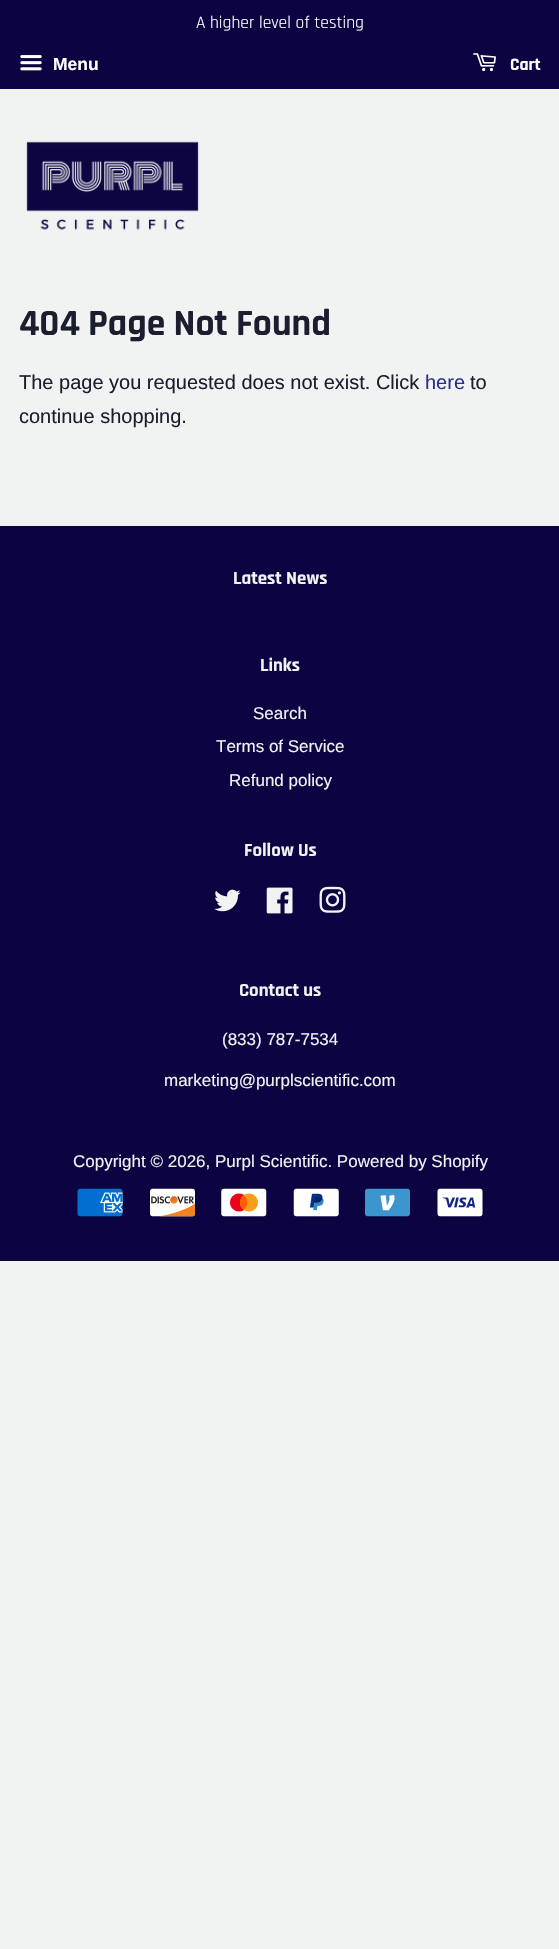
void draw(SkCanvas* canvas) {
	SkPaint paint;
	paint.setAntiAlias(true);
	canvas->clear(0xfff1f2f2);
	paint.setColor(0xff0c0343);
	canvas->drawRect(SkRect::MakeXYWH(0, 0, 559, 89), paint);
	SkFont f1(fontMgr->matchFamilyStyle("Rajdhani", SkFontStyle::Normal()), 17.5);
	f1.setSubpixel(true);
	paint.setColor(0xffffffff);
	canvas->drawString("A higher level of testing", 196, 28, f1, paint);
	canvas->drawImageRect(SkImages::DeferredFromEncodedData(SkData::MakeFromFileName("img1.png")), SkRect::MakeXYWH(20, 55, 22, 16), SkSamplingOptions());
	SkFont f2(fontMgr->matchFamilyStyle("Liberation Sans", SkFontStyle::Bold()), 17.5);
	f2.setSubpixel(true);
	canvas->drawString("Menu", 53, 70, f2, paint);
	canvas->drawImageRect(SkImages::DeferredFromEncodedData(SkData::MakeFromFileName("img2.png")), SkRect::MakeXYWH(473, 53, 23, 19), SkSamplingOptions());
	SkFont f3(fontMgr->matchFamilyStyle("Rajdhani", SkFontStyle::Bold()), 17.5);
	f3.setSubpixel(true);
	canvas->drawString("Cart", 510, 70, f3, paint);
	canvas->drawImageRect(SkImages::DeferredFromEncodedData(SkData::MakeFromFileName("img3.png")), SkRect::MakeXYWH(26, 141, 173, 89), SkSamplingOptions());
	SkFont f4(fontMgr->matchFamilyStyle("Rajdhani", SkFontStyle::Bold()), 37.5);
	f4.setSubpixel(true);
	paint.setColor(0xff1b1e2f);
	canvas->drawString("404 Page Not Found", 19, 335, f4, paint);
	SkFont f5(fontMgr->matchFamilyStyle("Liberation Sans", SkFontStyle::Normal()), 20);
	f5.setSubpixel(true);
	canvas->drawString("The page you requested does not exist. Click", 19, 389, f5, paint);
	paint.setColor(0xff2c308c);
	canvas->drawString("here", 425, 389, f5, paint);
	paint.setColor(0xff1b1e2f);
	canvas->drawString("to", 470, 389, f5, paint);
	canvas->drawString("continue shopping.", 19, 423, f5, paint);
	paint.setColor(0xff0c0343);
	canvas->drawRect(SkRect::MakeXYWH(0, 526, 559, 735), paint);
	SkFont f6(fontMgr->matchFamilyStyle("Rajdhani", SkFontStyle::Bold()), 18.75);
	f6.setSubpixel(true);
	paint.setColor(0xfff1f2f2);
	canvas->drawString("Latest News", 233, 584, f6, paint);
	canvas->drawString("Links", 260, 671, f6, paint);
	SkFont f7(fontMgr->matchFamilyStyle("Liberation Sans", SkFontStyle::Normal()), 17);
	f7.setSubpixel(true);
	canvas->drawString("Search", 253, 719, f7, paint);
	canvas->drawString("Terms of Service", 216, 752, f7, paint);
	canvas->drawString("Refund policy", 229, 786, f7, paint);
	canvas->drawString("Follow Us", 244, 856, f6, paint);
	canvas->drawImageRect(SkImages::DeferredFromEncodedData(SkData::MakeFromFileName("img4.png")), SkRect::MakeXYWH(214, 889, 27, 23), SkSamplingOptions());
	canvas->drawImageRect(SkImages::DeferredFromEncodedData(SkData::MakeFromFileName("img5.png")), SkRect::MakeXYWH(266, 887, 27, 27), SkSamplingOptions());
	canvas->drawImageRect(SkImages::DeferredFromEncodedData(SkData::MakeFromFileName("img6.png")), SkRect::MakeXYWH(319, 886, 27, 27), SkSamplingOptions());
	canvas->drawString("Contact us", 239, 996, f6, paint);
	canvas->drawString("(833) 787-7534", 222, 1045, f7, paint);
	canvas->drawString("marketing@purplscientific.com", 164, 1086, f7, paint);
	canvas->drawString("Copyright © 2026, Purpl Scientific. Powered by Shopify", 73, 1167, f7, paint);
	canvas->drawImageRect(SkImages::DeferredFromEncodedData(SkData::MakeFromFileName("img7.png")), SkRect::MakeXYWH(77, 1188, 46, 29), SkSamplingOptions());
	canvas->drawImageRect(SkImages::DeferredFromEncodedData(SkData::MakeFromFileName("img8.png")), SkRect::MakeXYWH(149, 1188, 47, 29), SkSamplingOptions());
	canvas->drawImageRect(SkImages::DeferredFromEncodedData(SkData::MakeFromFileName("img9.png")), SkRect::MakeXYWH(220, 1188, 47, 29), SkSamplingOptions());
	canvas->drawImageRect(SkImages::DeferredFromEncodedData(SkData::MakeFromFileName("img10.png")), SkRect::MakeXYWH(293, 1188, 47, 29), SkSamplingOptions());
	canvas->drawImageRect(SkImages::DeferredFromEncodedData(SkData::MakeFromFileName("img11.png")), SkRect::MakeXYWH(364, 1188, 47, 30), SkSamplingOptions());
	canvas->drawImageRect(SkImages::DeferredFromEncodedData(SkData::MakeFromFileName("img12.png")), SkRect::MakeXYWH(437, 1188, 46, 29), SkSamplingOptions());
}
